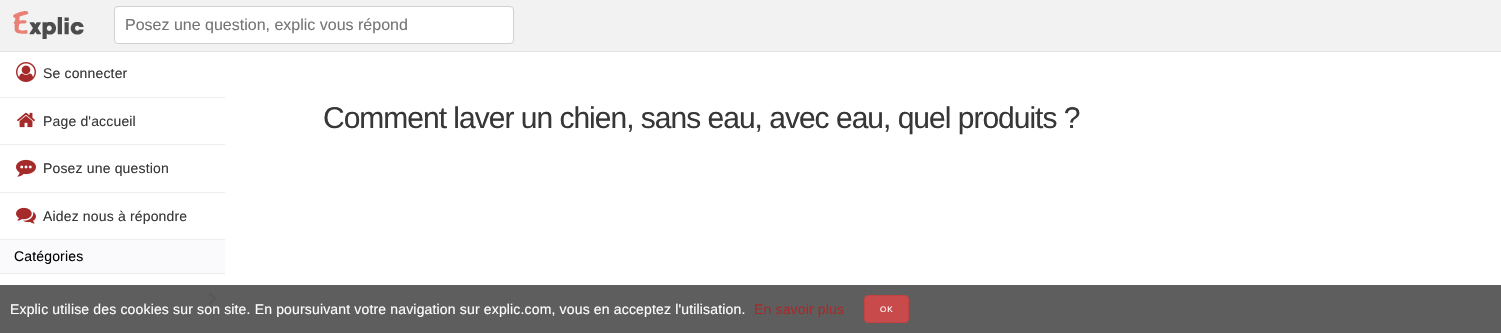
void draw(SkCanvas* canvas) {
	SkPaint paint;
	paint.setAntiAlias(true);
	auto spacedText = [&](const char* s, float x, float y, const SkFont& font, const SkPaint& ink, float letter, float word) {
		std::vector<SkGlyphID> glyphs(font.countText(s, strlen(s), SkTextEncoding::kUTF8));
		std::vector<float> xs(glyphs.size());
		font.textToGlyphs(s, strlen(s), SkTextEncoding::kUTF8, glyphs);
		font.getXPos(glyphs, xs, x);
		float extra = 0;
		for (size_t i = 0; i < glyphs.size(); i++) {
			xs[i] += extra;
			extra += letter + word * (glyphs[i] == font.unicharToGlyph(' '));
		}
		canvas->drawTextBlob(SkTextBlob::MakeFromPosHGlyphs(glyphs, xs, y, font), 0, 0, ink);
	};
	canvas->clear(0xffffffff);
	paint.setColor(0xff5e5e5e);
	canvas->drawRect(SkRect::MakeXYWH(0, 285, 1501, 48), paint);
	paint.setColor(0xfff2f2f2);
	canvas->drawRect(SkRect::MakeXYWH(0, 0, 1501, 51), paint);
	paint.setColor(0xffe4e4e4);
	canvas->drawRect(SkRect::MakeXYWH(0, 51, 1501, 1), paint);
	canvas->drawImageRect(SkImages::DeferredFromEncodedData(SkData::MakeFromFileName("img1.png")), SkRect::MakeXYWH(13, 11, 71, 28), SkSamplingOptions());
	paint.setColor(0xffffffff);
	canvas->drawRoundRect(SkRect::MakeXYWH(114.5, 6.5, 399, 37), 3.5, 3.5, paint);
	paint.setStroke(true);
	paint.setStrokeWidth(1);
	paint.setColor(0xffd1d1d1);
	canvas->drawRoundRect(SkRect::MakeXYWH(114.5, 6.5, 399, 37), 3.5, 3.5, paint);
	SkFont f1(fontMgr->matchFamilyStyle("Liberation Sans", SkFontStyle::Normal()), 16);
	f1.setSubpixel(true);
	paint.setStroke(false);
	paint.setColor(0xff757575);
	canvas->drawString("Posez une question, explic vous répond", 125, 30, f1, paint);
	paint.setColor(0xffeeeeee);
	canvas->drawRect(SkRect::MakeXYWH(0, 97, 225, 1), paint);
	canvas->drawImageRect(SkImages::DeferredFromEncodedData(SkData::MakeFromFileName("img2.png")), SkRect::MakeXYWH(16, 62, 20, 20), SkSamplingOptions());
	SkFont f2(fontMgr->matchFamilyStyle("Liberation Sans", SkFontStyle::Normal()), 14);
	f2.setSubpixel(true);
	paint.setColor(0xff373737);
	spacedText("Se connecter", 43, 78, f2, paint, 0.16, 0);
	paint.setColor(0xffeeeeee);
	canvas->drawRect(SkRect::MakeXYWH(0, 144, 225, 1), paint);
	canvas->drawImageRect(SkImages::DeferredFromEncodedData(SkData::MakeFromFileName("img3.png")), SkRect::MakeXYWH(17, 112, 18, 16), SkSamplingOptions());
	paint.setColor(0xff373737);
	spacedText("Page d'accueil", 43, 126, f2, paint, 0.16, 0);
	paint.setColor(0xffeeeeee);
	canvas->drawRect(SkRect::MakeXYWH(0, 192, 225, 1), paint);
	canvas->drawImageRect(SkImages::DeferredFromEncodedData(SkData::MakeFromFileName("img4.png")), SkRect::MakeXYWH(16, 159, 20, 18), SkSamplingOptions());
	paint.setColor(0xff373737);
	spacedText("Posez une question", 43, 173, f2, paint, 0.16, 0);
	paint.setColor(0xffeeeeee);
	canvas->drawRect(SkRect::MakeXYWH(0, 239, 225, 1), paint);
	canvas->drawImageRect(SkImages::DeferredFromEncodedData(SkData::MakeFromFileName("img5.png")), SkRect::MakeXYWH(16, 207, 20, 17), SkSamplingOptions());
	paint.setColor(0xff373737);
	spacedText("Aidez nous à répondre", 43, 221, f2, paint, 0.16, 0);
	paint.setColor(0xfffafafc);
	canvas->drawRect(SkRect::MakeXYWH(0, 240, 225, 33), paint);
	paint.setColor(0xffedebec);
	canvas->drawRect(SkRect::MakeXYWH(0, 273, 225, 1), paint);
	paint.setColor(0xff000000);
	spacedText("Catégories", 14, 261, f2, paint, 0.16, 0);
	canvas->drawImageRect(SkImages::DeferredFromEncodedData(SkData::MakeFromFileName("img6.png")), SkRect::MakeXYWH(208, 292, 9, 13), SkSamplingOptions());
	SkFont f3(fontMgr->matchFamilyStyle("Liberation Sans", SkFontStyle::Normal()), 30);
	f3.setSubpixel(true);
	paint.setColor(0xff373737);
	spacedText("Comment laver un chien, sans eau, avec eau, quel produits ?", 323, 128, f3, paint, -1, 0);
	paint.setColor(0xffffffff);
	spacedText("Explic utilise des cookies sur son site. En poursuivant votre navigation sur explic.com, vous en acceptez l'utilisation.", 10, 314, f2, paint, 0.16, 0);
	paint.setColor(0xffa52a2a);
	spacedText("En savoir plus", 754, 314, f2, paint, 0.16, 0);
	paint.setColor(0xffc94a4a);
	canvas->drawRoundRect(SkRect::MakeXYWH(864.5, 295.5, 44, 27), 3.5, 3.5, paint);
	paint.setStroke(true);
	paint.setColor(0xffc24242);
	canvas->drawRoundRect(SkRect::MakeXYWH(864.5, 295.5, 44, 27), 3.5, 3.5, paint);
	SkFont f4(fontMgr->matchFamilyStyle("Liberation Sans", SkFontStyle::Normal()), 8);
	f4.setSubpixel(true);
	paint.setStroke(false);
	paint.setColor(0xffffffff);
	spacedText("OK", 880, 312, f4, paint, 1, 0);
}
